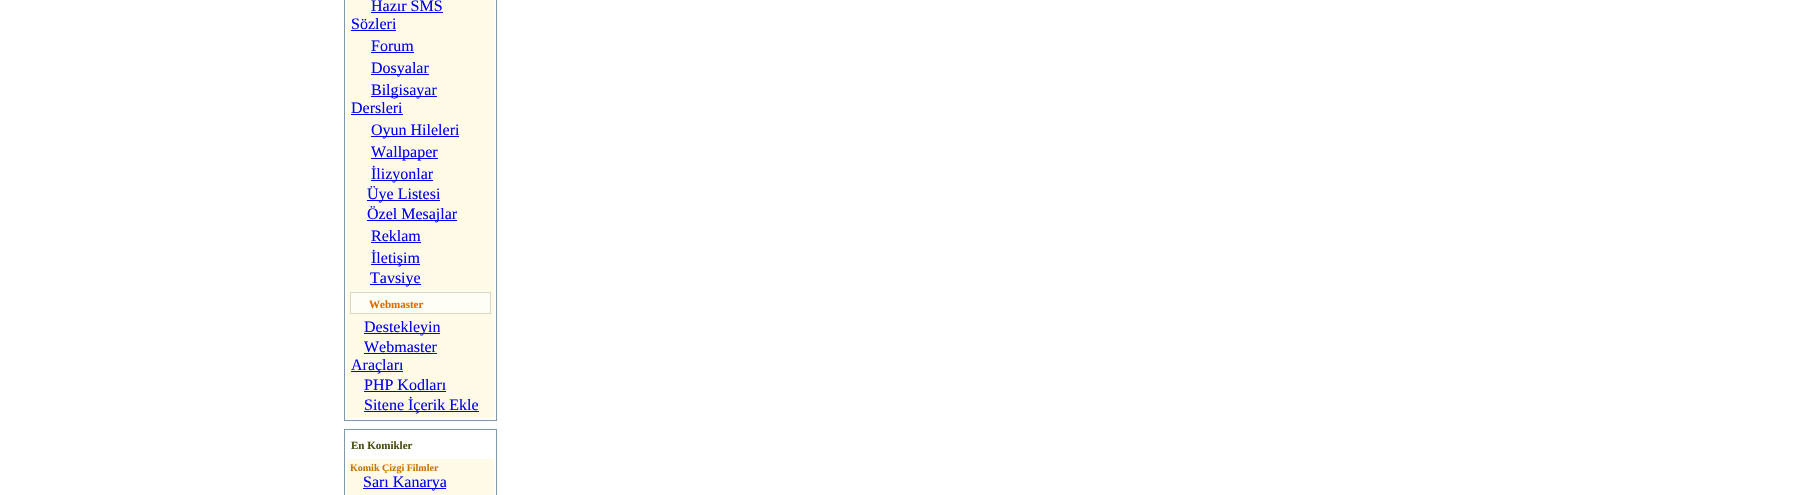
void draw(SkCanvas* canvas) {
	SkPaint paint;
	paint.setAntiAlias(true);
	canvas->clear(0xffffffff);
	paint.setStroke(true);
	paint.setStrokeWidth(1);
	paint.setColor(0xff8098ac);
	canvas->drawRect(SkRect::MakeXYWH(344.5, -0.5, 152, 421), paint);
	paint.setStroke(false);
	paint.setColor(0xfffffbe6);
	canvas->drawRect(SkRect::MakeXYWH(347, 0, 147, 418), paint);
	SkFont f1(fontMgr->matchFamilyStyle("Liberation Serif", SkFontStyle::Normal()), 16);
	f1.setSubpixel(true);
	paint.setColor(0xff0000ee);
	canvas->drawString("Hazır SMS", 371, 11, f1, paint);
	canvas->drawRect(SkRect::MakeXYWH(371, 12, 72, 1), paint);
	canvas->drawString("Sözleri", 351, 29, f1, paint);
	canvas->drawRect(SkRect::MakeXYWH(351, 30, 45, 1), paint);
	canvas->drawString("Forum", 371, 51, f1, paint);
	canvas->drawRect(SkRect::MakeXYWH(371, 52, 43, 1), paint);
	canvas->drawRect(SkRect::MakeXYWH(371, 74, 58, 1), paint);
	canvas->drawString("Dosyalar", 371, 73, f1, paint);
	canvas->drawRect(SkRect::MakeXYWH(371, 96, 66, 1), paint);
	canvas->drawString("Bilgisayar", 371, 95, f1, paint);
	canvas->drawString("Dersleri", 351, 113, f1, paint);
	canvas->drawRect(SkRect::MakeXYWH(351, 114, 52, 1), paint);
	canvas->drawRect(SkRect::MakeXYWH(371, 136, 88, 1), paint);
	canvas->drawString("Oyun Hileleri", 371, 135, f1, paint);
	canvas->drawRect(SkRect::MakeXYWH(371, 158, 67, 1), paint);
	canvas->drawString("Wallpaper", 371, 157, f1, paint);
	canvas->drawRect(SkRect::MakeXYWH(371, 180, 62, 1), paint);
	canvas->drawString("İlizyonlar", 371, 179, f1, paint);
	canvas->drawRect(SkRect::MakeXYWH(367, 200, 73, 1), paint);
	canvas->drawString("Üye Listesi", 367, 199, f1, paint);
	canvas->drawRect(SkRect::MakeXYWH(367, 220, 90, 1), paint);
	canvas->drawString("Özel Mesajlar", 367, 219, f1, paint);
	canvas->drawString("Reklam", 371, 241, f1, paint);
	canvas->drawRect(SkRect::MakeXYWH(371, 242, 50, 1), paint);
	canvas->drawRect(SkRect::MakeXYWH(371, 264, 49, 1), paint);
	canvas->drawString("İletişim", 371, 263, f1, paint);
	canvas->drawRect(SkRect::MakeXYWH(370, 284, 51, 1), paint);
	canvas->drawString("Tavsiye", 370, 283, f1, paint);
	paint.setColor(0xfffffef4);
	canvas->drawRect(SkRect::MakeXYWH(351, 293, 139, 20), paint);
	paint.setColor(0xffd7d7c8);
	canvas->drawRect(SkRect::MakeXYWH(350, 292, 141, 1), paint);
	canvas->drawRect(SkRect::MakeXYWH(490, 292, 1, 22), paint);
	canvas->drawRect(SkRect::MakeXYWH(350, 313, 141, 1), paint);
	canvas->drawRect(SkRect::MakeXYWH(350, 292, 1, 22), paint);
	SkFont f2(fontMgr->matchFamilyStyle("Liberation Serif", SkFontStyle::Bold()), 11);
	f2.setSubpixel(true);
	paint.setColor(0xffd96c00);
	canvas->drawString("Webmaster", 369, 308, f2, paint);
	paint.setColor(0xff0000ee);
	canvas->drawRect(SkRect::MakeXYWH(364, 333, 76, 1), paint);
	canvas->drawString("Destekleyin", 364, 332, f1, paint);
	canvas->drawString("Webmaster", 364, 352, f1, paint);
	canvas->drawRect(SkRect::MakeXYWH(364, 353, 73, 1), paint);
	canvas->drawRect(SkRect::MakeXYWH(351, 371, 52, 1), paint);
	canvas->drawString("Araçları", 351, 370, f1, paint);
	canvas->drawString("PHP Kodları", 364, 390, f1, paint);
	canvas->drawRect(SkRect::MakeXYWH(364, 391, 82, 1), paint);
	canvas->drawRect(SkRect::MakeXYWH(364, 411, 115, 1), paint);
	canvas->drawString("Sitene İçerik Ekle", 364, 410, f1, paint);
	paint.setStroke(true);
	paint.setColor(0xff8098ac);
	canvas->drawRect(SkRect::MakeXYWH(344.5, 429.5, 152, 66), paint);
	paint.setStroke(false);
	paint.setColor(0xff4b4d15);
	canvas->drawString("En Komikler", 351, 449, f2, paint);
	paint.setColor(0xfffffbe6);
	canvas->drawRect(SkRect::MakeXYWH(347, 459, 147, 36), paint);
	SkFont f3(fontMgr->matchFamilyStyle("Liberation Serif", SkFontStyle::Bold()), 10);
	f3.setSubpixel(true);
	paint.setColor(0xffc67700);
	canvas->drawString("Komik Çizgi Filmler", 350, 471, f3, paint);
	paint.setColor(0xff0000ee);
	canvas->drawRect(SkRect::MakeXYWH(363, 488, 83, 1), paint);
	canvas->drawString("Sarı Kanarya", 363, 487, f1, paint);
}
